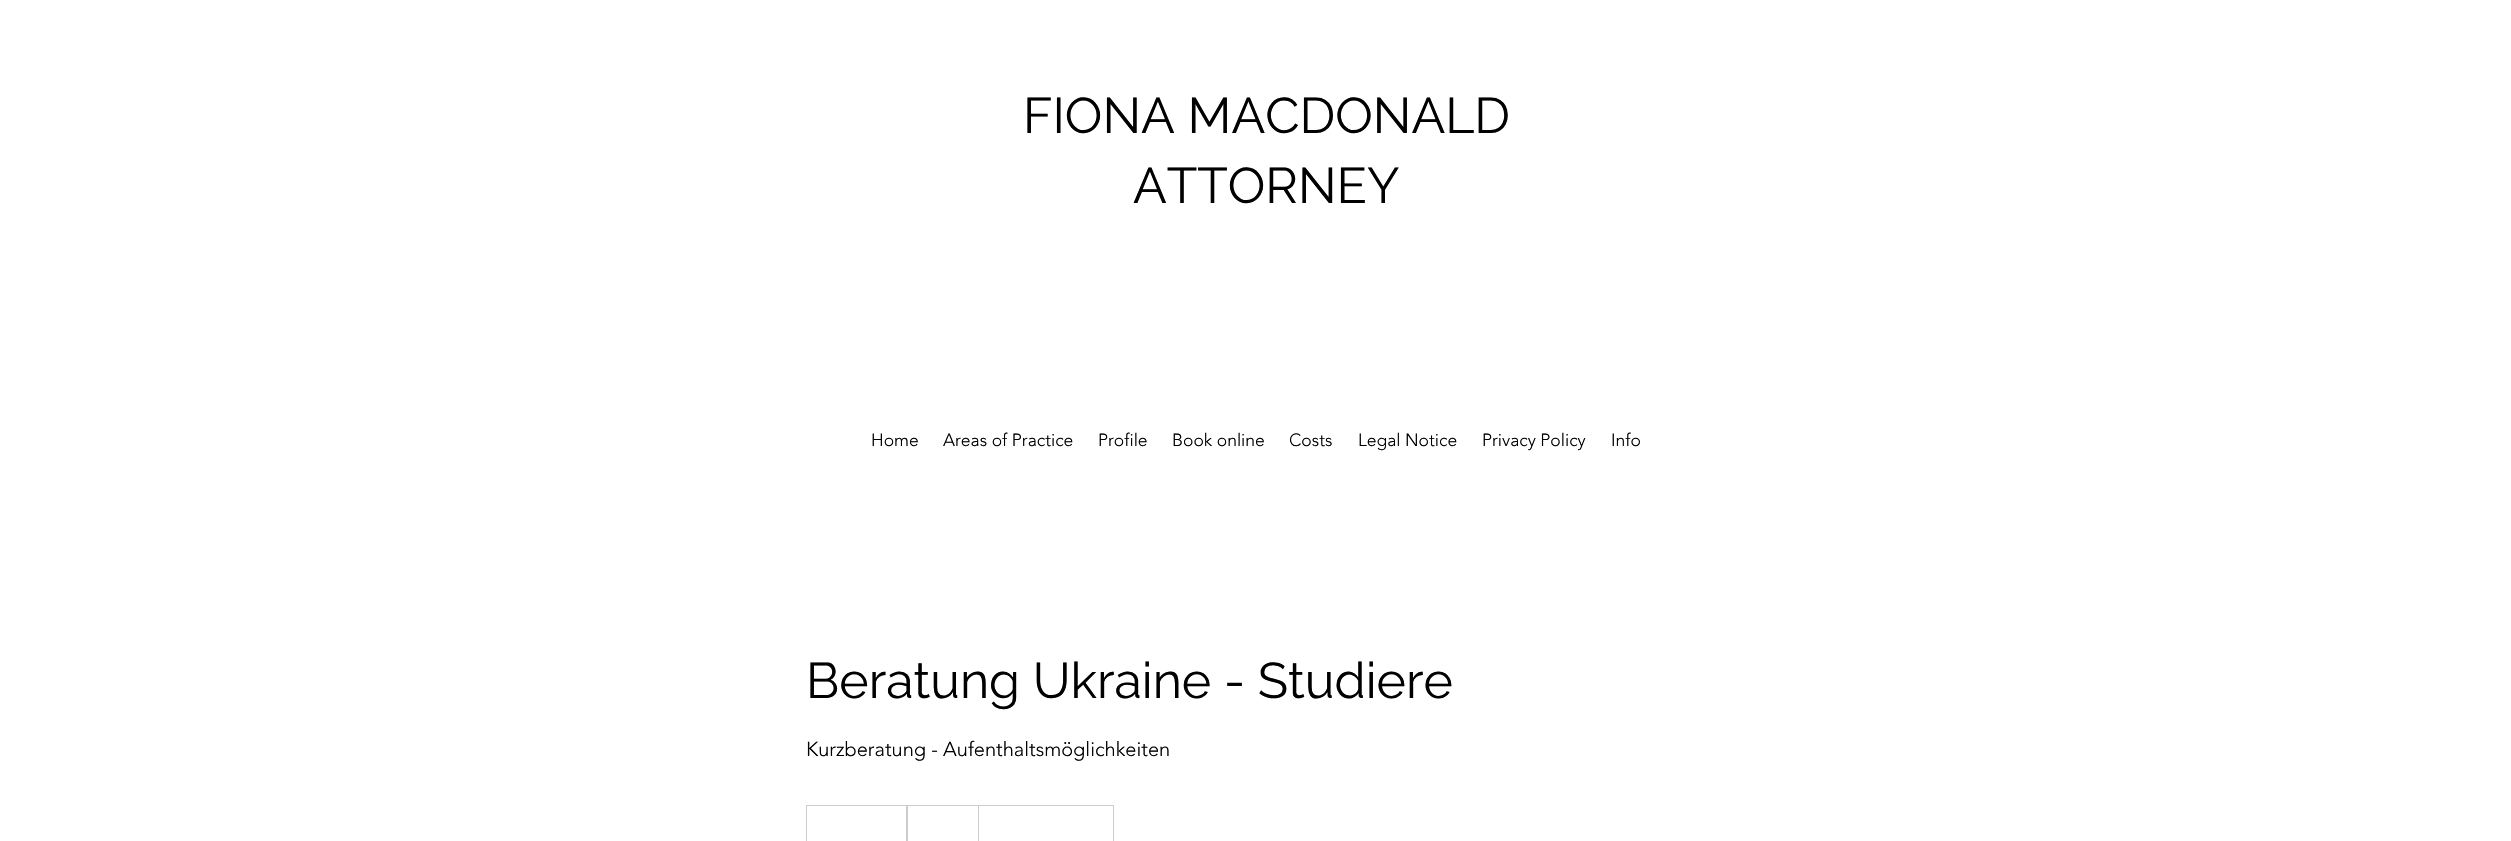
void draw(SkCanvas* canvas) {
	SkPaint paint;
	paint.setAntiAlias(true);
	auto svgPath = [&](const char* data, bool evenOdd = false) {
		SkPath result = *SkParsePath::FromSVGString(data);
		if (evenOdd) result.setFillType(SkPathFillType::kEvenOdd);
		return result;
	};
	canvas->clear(0xffffffff);
	SkFont f1(fontMgr->matchFamilyStyle("Raleway", SkFontStyle::Normal()), 50);
	f1.setSubpixel(true);
	paint.setColor(0xff000000);
	canvas->drawString("FIONA MACDONALD", 1023, 133, f1, paint);
	canvas->drawString("ATTORNEY", 1133, 203, f1, paint);
	SkFont f2(fontMgr->matchFamilyStyle("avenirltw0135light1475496", SkFontStyle(300, SkFontStyle::kNormal_Width, SkFontStyle::kUpright_Slant)), 17.5);
	f2.setSubpixel(true);
	canvas->drawString("Home", 871, 446, f2, paint);
	canvas->drawString("Areas of Practice", 943, 446, f2, paint);
	canvas->drawString("Profile", 1098, 446, f2, paint);
	canvas->drawString("Book online", 1172, 446, f2, paint);
	canvas->drawString("Costs", 1289, 446, f2, paint);
	canvas->drawString("Legal Notice", 1358, 446, f2, paint);
	canvas->drawString("Privacy Policy", 1482, 446, f2, paint);
	canvas->drawString("Info", 1611, 446, f2, paint);
	canvas->drawString("Beratung Ukraine - Studiere", 806, 698, f1, paint);
	SkFont f3(fontMgr->matchFamilyStyle("avenirltw0135light1475496", SkFontStyle(300, SkFontStyle::kNormal_Width, SkFontStyle::kUpright_Slant)), 20);
	f3.setSubpixel(true);
	canvas->drawString("Kurzberatung - Aufenthaltsmöglichkeiten", 806, 756, f3, paint);
	paint.setStroke(true);
	paint.setStrokeWidth(1);
	paint.setColor(0xffcccccc);
	canvas->drawRect(SkRect::MakeXYWH(806.5, 805.5, 307, 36), paint);
	paint.setStroke(false);
	canvas->drawPath(svgPath("M906 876V805L908 806V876Z"), paint);
	canvas->drawPath(svgPath("M978 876V805L979 806V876Z"), paint);
}
